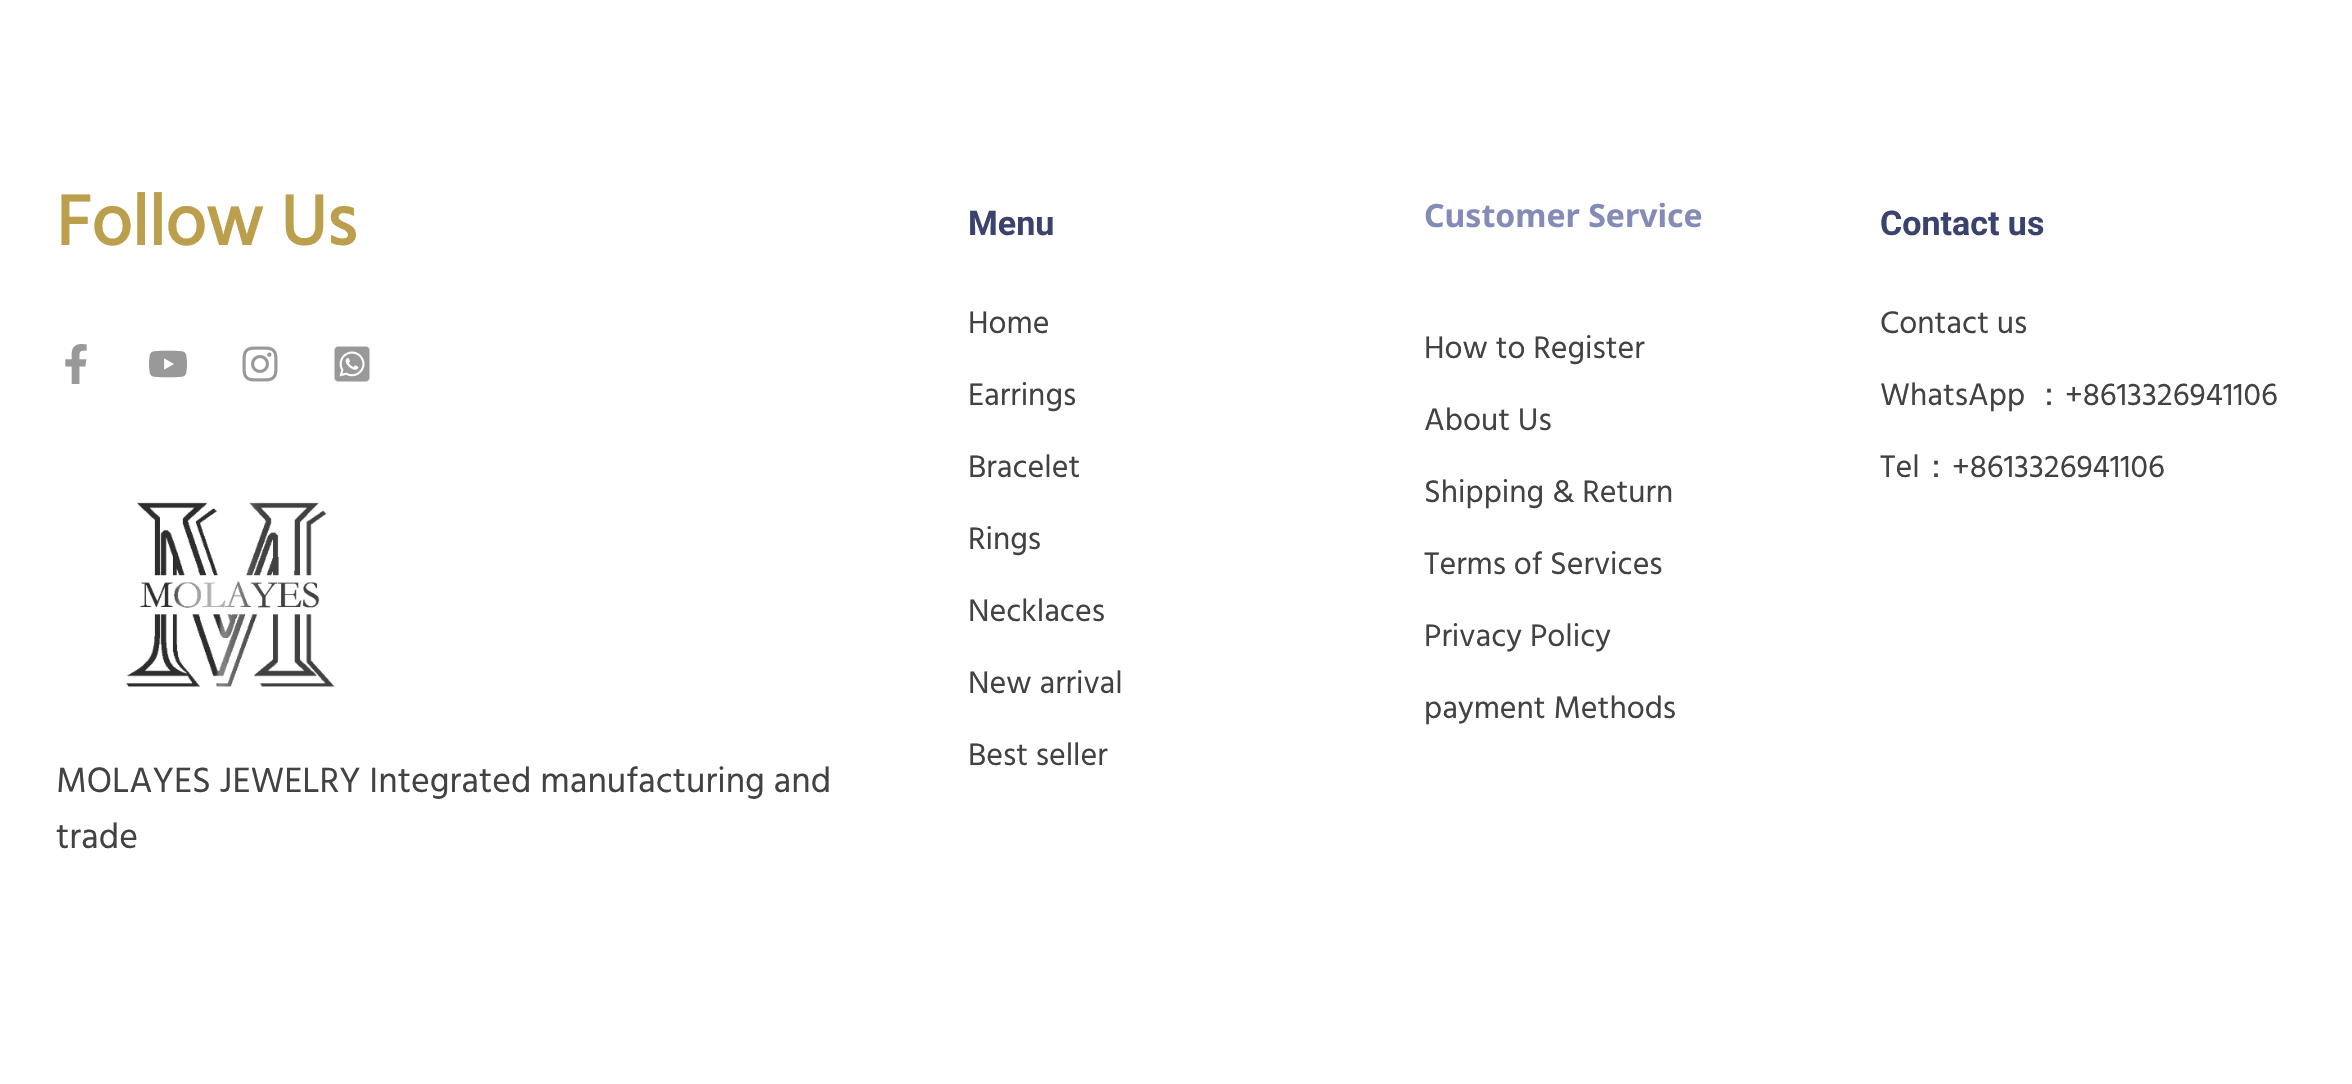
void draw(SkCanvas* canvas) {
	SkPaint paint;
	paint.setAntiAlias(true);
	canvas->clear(0xffffffff);
	SkFont f1(fontMgr->matchFamilyStyle("Hind", SkFontStyle::Bold()), 72);
	f1.setSubpixel(true);
	paint.setColor(0xffbc9f4c);
	canvas->drawString("Follow Us", 56, 245, f1, paint);
	canvas->drawImageRect(SkImages::DeferredFromEncodedData(SkData::MakeFromFileName("img1.png")), SkRect::MakeXYWH(65, 344, 22, 40), SkSamplingOptions());
	canvas->drawImageRect(SkImages::DeferredFromEncodedData(SkData::MakeFromFileName("img2.png")), SkRect::MakeXYWH(149, 350, 38, 28), SkSamplingOptions());
	canvas->drawImageRect(SkImages::DeferredFromEncodedData(SkData::MakeFromFileName("img3.png")), SkRect::MakeXYWH(242, 346, 36, 36), SkSamplingOptions());
	canvas->drawImageRect(SkImages::DeferredFromEncodedData(SkData::MakeFromFileName("img4.png")), SkRect::MakeXYWH(334, 346, 36, 36), SkSamplingOptions());
	canvas->drawImageRect(SkImages::DeferredFromEncodedData(SkData::MakeFromFileName("img5.png")), SkRect::MakeXYWH(126, 502, 209, 185), SkSamplingOptions());
	SkFont f2(fontMgr->matchFamilyStyle("Hind", SkFontStyle::Normal()), 36);
	f2.setSubpixel(true);
	paint.setColor(0xff424242);
	canvas->drawString("MOLAYES JEWELRY Integrated manufacturing and", 56, 792, f2, paint);
	canvas->drawString("trade", 56, 848, f2, paint);
	SkFont f3(fontMgr->matchFamilyStyle("Roboto", SkFontStyle::Bold()), 34);
	f3.setSubpixel(true);
	paint.setColor(0xff3a426d);
	canvas->drawString("Menu", 968, 235, f3, paint);
	SkFont f4(fontMgr->matchFamilyStyle("Hind", SkFontStyle::Normal()), 32);
	f4.setSubpixel(true);
	paint.setColor(0xff424242);
	canvas->drawString("Home", 968, 333, f4, paint);
	canvas->drawString("Earrings", 968, 405, f4, paint);
	canvas->drawString("Bracelet", 968, 477, f4, paint);
	canvas->drawString("Rings", 968, 549, f4, paint);
	canvas->drawString("Necklaces", 968, 621, f4, paint);
	canvas->drawString("New arrival", 968, 693, f4, paint);
	canvas->drawString("Best seller", 968, 765, f4, paint);
	SkFont f5(fontMgr->matchFamilyStyle("Noto Sans", SkFontStyle::Bold()), 32);
	f5.setSubpixel(true);
	paint.setColor(0xff848bb6);
	canvas->drawString("Customer Service", 1424, 227, f5, paint);
	paint.setColor(0xff424242);
	canvas->drawString("How to Register", 1424, 358, f4, paint);
	canvas->drawString("About Us", 1424, 430, f4, paint);
	canvas->drawString("Shipping & Return", 1424, 502, f4, paint);
	canvas->drawString("Terms of Services", 1424, 574, f4, paint);
	canvas->drawString("Privacy Policy", 1424, 646, f4, paint);
	canvas->drawString("payment Methods", 1424, 718, f4, paint);
	paint.setColor(0xff3a426d);
	canvas->drawString("Contact us", 1880, 235, f3, paint);
	paint.setColor(0xff424242);
	canvas->drawString("Contact us", 1880, 333, f4, paint);
	canvas->drawString("WhatsApp", 1880, 405, f4, paint);
	SkFont f6(fontMgr->matchFamilyStyle("WenQuanYi Zen Hei", SkFontStyle(500, SkFontStyle::kNormal_Width, SkFontStyle::kUpright_Slant)), 32);
	f6.setSubpixel(true);
	canvas->drawString("：", 2033, 405, f6, paint);
	canvas->drawString("+8613326941106", 2065, 405, f4, paint);
	canvas->drawString("Tel", 1880, 477, f4, paint);
	canvas->drawString("：", 1920, 477, f6, paint);
	canvas->drawString("+8613326941106", 1952, 477, f4, paint);
}
